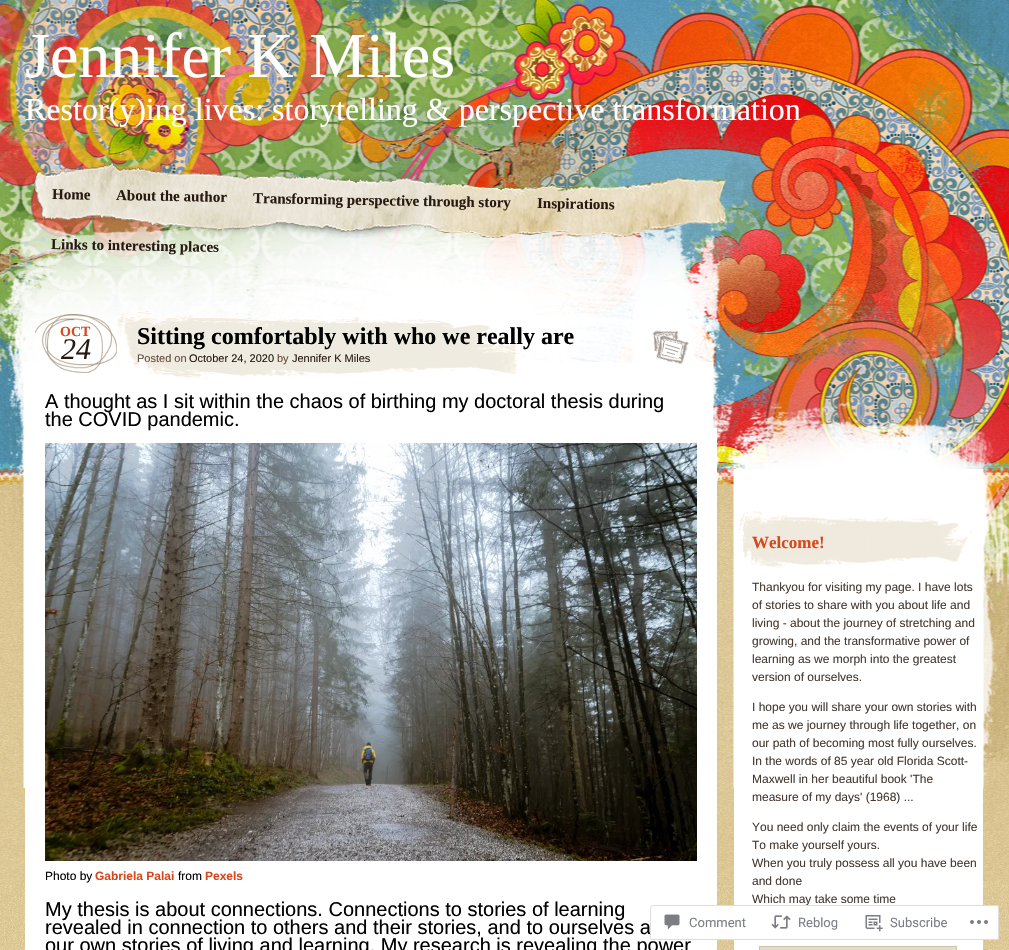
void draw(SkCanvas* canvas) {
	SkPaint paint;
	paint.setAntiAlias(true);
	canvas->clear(0xffffffff);
	canvas->drawImageRect(SkImages::DeferredFromEncodedData(SkData::MakeFromFileName("img1.png")), SkRect::MakeXYWH(0, 883, 1009, 67), SkSamplingOptions());
	canvas->drawImageRect(SkImages::DeferredFromEncodedData(SkData::MakeFromFileName("img2.png")), SkRect::MakeXYWH(0, 0, 1009, 883), SkSamplingOptions());
	SkFont f1(fontMgr->matchFamilyStyle("Liberation Serif", SkFontStyle::Normal()), 64);
	f1.setSubpixel(true);
	paint.setColor(0xffffffff);
	canvas->drawString("Jennifer K Miles", 25, 77, f1, paint);
	SkFont f2(fontMgr->matchFamilyStyle("Liberation Serif", SkFontStyle::Normal()), 32);
	f2.setSubpixel(true);
	canvas->drawString("Restor(y)ing lives: storytelling & perspective transformation", 25, 120, f2, paint);
	canvas->drawImageRect(SkImages::DeferredFromEncodedData(SkData::MakeFromFileName("img4.png")), SkRect::MakeXYWH(0, 198, 1009, 590), SkSamplingOptions());
	canvas->drawImageRect(SkImages::DeferredFromEncodedData(SkData::MakeFromFileName("img3.png")), SkRect::MakeXYWH(32, 161, 696, 77), SkSamplingOptions());
	SkFont f3(fontMgr->matchFamilyStyle("Liberation Serif", SkFontStyle::Bold()), 15);
	f3.setSubpixel(true);
	paint.setColor(0xff261a11);
	canvas->save();
	canvas->rotate(1, 52, 199);
	canvas->drawString("Home", 52, 199, f3, paint);
	canvas->restore();
	canvas->save();
	canvas->rotate(1, 116, 200);
	canvas->drawString("About the author", 116, 200, f3, paint);
	canvas->restore();
	canvas->save();
	canvas->rotate(1, 253, 203);
	canvas->drawString("Transforming perspective through story", 253, 203, f3, paint);
	canvas->restore();
	canvas->save();
	canvas->rotate(1, 537, 208);
	canvas->drawString("Inspirations", 537, 208, f3, paint);
	canvas->restore();
	canvas->save();
	canvas->rotate(1, 51, 249);
	canvas->drawString("Links to interesting places", 51, 249, f3, paint);
	canvas->restore();
	paint.setColor(0xffffffff);
	canvas->drawRect(SkRect::MakeXYWH(25, 428, 692, 522), paint);
	canvas->drawImageRect(SkImages::DeferredFromEncodedData(SkData::MakeFromFileName("img5.png")), SkRect::MakeXYWH(35, 314, 82, 59), SkSamplingOptions());
	SkFont f4(fontMgr->matchFamilyStyle("Liberation Serif", SkFontStyle::Bold()), 14);
	f4.setSubpixel(true);
	paint.setColor(0xffd8471d);
	canvas->drawString("OCT", 60, 336, f4, paint);
	SkFont f5(fontMgr->matchFamilyStyle("Liberation Serif", SkFontStyle::Italic()), 30);
	f5.setSubpixel(true);
	paint.setColor(0xff261a11);
	canvas->drawString("24", 61, 359, f5, paint);
	canvas->drawImageRect(SkImages::DeferredFromEncodedData(SkData::MakeFromFileName("img6.png")), SkRect::MakeXYWH(117, 308, 403, 71), SkSamplingOptions());
	SkFont f6(fontMgr->matchFamilyStyle("Liberation Serif", SkFontStyle::Bold()), 24);
	f6.setSubpixel(true);
	paint.setColor(0xff000000);
	canvas->drawString("Sitting comfortably with who we really are", 137, 344, f6, paint);
	SkFont f7(fontMgr->matchFamilyStyle("Liberation Sans", SkFontStyle::Normal()), 11);
	f7.setSubpixel(true);
	paint.setColor(0xff644a3d);
	canvas->drawString("Posted on", 137, 362, f7, paint);
	paint.setColor(0xff261a11);
	canvas->drawString("October 24, 2020", 189, 362, f7, paint);
	paint.setColor(0xff644a3d);
	canvas->drawString("by", 277, 362, f7, paint);
	paint.setColor(0xff261a11);
	canvas->drawString("Jennifer K Miles", 292, 362, f7, paint);
	canvas->drawImageRect(SkImages::DeferredFromEncodedData(SkData::MakeFromFileName("img7.png")), SkRect::MakeXYWH(652, 330, 37, 35), SkSamplingOptions());
	SkFont f8(fontMgr->matchFamilyStyle("Liberation Sans", SkFontStyle::Normal()), 20);
	f8.setSubpixel(true);
	paint.setColor(0xff000000);
	canvas->drawString("A thought as I sit within the chaos of birthing my doctoral thesis during", 45, 408, f8, paint);
	canvas->drawString("the COVID pandemic.", 45, 426, f8, paint);
	canvas->drawImageRect(SkImages::DeferredFromEncodedData(SkData::MakeFromFileName("img8.png")), SkRect::MakeXYWH(45, 443, 652, 418), SkSamplingOptions());
	SkFont f9(fontMgr->matchFamilyStyle("Liberation Sans", SkFontStyle::Normal()), 12);
	f9.setSubpixel(true);
	canvas->drawString("Photo by", 45, 880, f9, paint);
	SkFont f10(fontMgr->matchFamilyStyle("Liberation Sans", SkFontStyle::Bold()), 12);
	f10.setSubpixel(true);
	paint.setColor(0xffd8471d);
	canvas->drawString("Gabriela Palai", 95, 880, f10, paint);
	paint.setColor(0xff000000);
	canvas->drawString("from", 178, 880, f9, paint);
	paint.setColor(0xffd8471d);
	canvas->drawString("Pexels", 205, 880, f10, paint);
	paint.setColor(0xff000000);
	canvas->drawString("My thesis is about connections. Connections to stories of learning", 45, 916, f8, paint);
	canvas->drawString("revealed in connection to others and their stories, and to ourselves a", 45, 934, f8, paint);
	canvas->drawString("our own stories of living and learning. My research is revealing the power", 45, 952, f8, paint);
	paint.setColor(0xffffffff);
	canvas->drawRect(SkRect::MakeXYWH(734, 788, 249, 162), paint);
	canvas->drawImageRect(SkImages::DeferredFromEncodedData(SkData::MakeFromFileName("img9.png")), SkRect::MakeXYWH(738, 511, 234, 57), SkSamplingOptions());
	SkFont f11(fontMgr->matchFamilyStyle("Liberation Serif", SkFontStyle::Bold()), 17);
	f11.setSubpixel(true);
	paint.setColor(0xffd8471d);
	canvas->drawString("Welcome!", 752, 548, f11, paint);
	paint.setColor(0xff463b33);
	canvas->drawString("Thankyou for visiting my page. I have lots", 752, 591, f9, paint);
	canvas->drawString("of stories to share with you about life and", 752, 609, f9, paint);
	canvas->drawString("living - about the journey of stretching and", 752, 627, f9, paint);
	canvas->drawString("growing, and the transformative power of", 752, 645, f9, paint);
	canvas->drawString("learning as we morph into the greatest", 752, 663, f9, paint);
	canvas->drawString("version of ourselves.", 752, 681, f9, paint);
	canvas->drawString("I hope you will share your own stories with", 752, 711, f9, paint);
	canvas->drawString("me as we journey through life together, on", 752, 729, f9, paint);
	canvas->drawString("our path of becoming most fully ourselves.", 752, 747, f9, paint);
	canvas->drawString("In the words of 85 year old Florida Scott-", 752, 765, f9, paint);
	canvas->drawString("Maxwell in her beautiful book 'The", 752, 783, f9, paint);
	canvas->drawString("measure of my days' (1968) ...", 752, 801, f9, paint);
	canvas->drawString("You need only claim the events of your life", 752, 831, f9, paint);
	canvas->drawString("To make yourself yours.", 752, 849, f9, paint);
	canvas->drawString("When you truly possess all you have been", 752, 867, f9, paint);
	canvas->drawString("and done", 752, 885, f9, paint);
	canvas->drawString("Which may take some time", 752, 903, f9, paint);
	paint.setColor(0xffe2dbd1);
	canvas->drawRect(SkRect::MakeXYWH(759.5, 946.5, 197, 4), paint);
	paint.setStroke(true);
	paint.setStrokeWidth(1);
	paint.setColor(0xffd1bfa6);
	canvas->drawRect(SkRect::MakeXYWH(759.5, 946.5, 197, 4), paint);
	paint.setStroke(false);
	paint.setColor(0xfaffffff);
	canvas->drawRoundRect(SkRect::MakeXYWH(650, 905, 349, 35), 3, 3, paint);
	paint.setStroke(true);
	paint.setColor(0xfadcdcde);
	canvas->drawRoundRect(SkRect::MakeXYWH(650.5, 905.5, 348, 34), 2.5, 2.5, paint);
	canvas->drawImageRect(SkImages::DeferredFromEncodedData(SkData::MakeFromFileName("img10.png")), SkRect::MakeXYWH(664, 914, 16, 16), SkSamplingOptions());
	SkFont f12(fontMgr->matchFamilyStyle("Roboto", SkFontStyle::Normal()), 13);
	f12.setSubpixel(true);
	paint.setStroke(false);
	paint.setColor(0xff7b7f84);
	canvas->drawString("Comment", 689, 927, f12, paint);
	canvas->drawImageRect(SkImages::DeferredFromEncodedData(SkData::MakeFromFileName("img11.png")), SkRect::MakeXYWH(771, 915, 20, 14), SkSamplingOptions());
	canvas->drawString("Reblog", 798, 927, f12, paint);
	canvas->drawImageRect(SkImages::DeferredFromEncodedData(SkData::MakeFromFileName("img12.png")), SkRect::MakeXYWH(865, 915, 18, 17), SkSamplingOptions());
	canvas->drawString("Subscribe", 890, 927, f12, paint);
	canvas->drawImageRect(SkImages::DeferredFromEncodedData(SkData::MakeFromFileName("img13.png")), SkRect::MakeXYWH(970, 920, 18, 4), SkSamplingOptions());
}
